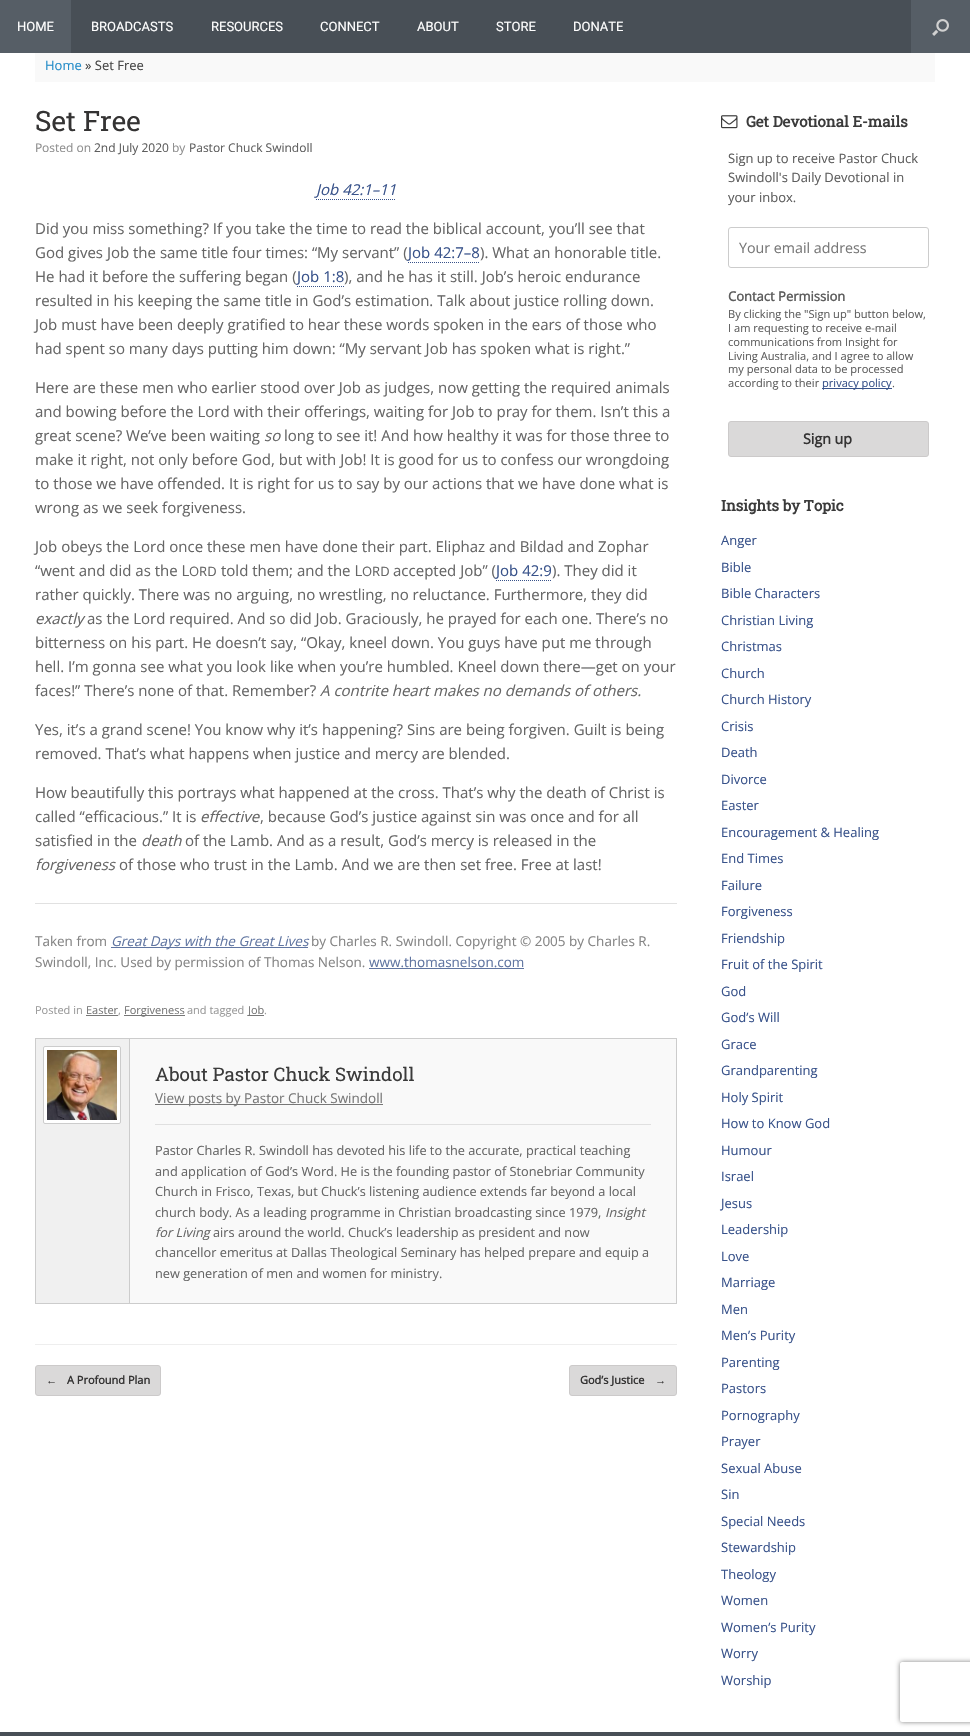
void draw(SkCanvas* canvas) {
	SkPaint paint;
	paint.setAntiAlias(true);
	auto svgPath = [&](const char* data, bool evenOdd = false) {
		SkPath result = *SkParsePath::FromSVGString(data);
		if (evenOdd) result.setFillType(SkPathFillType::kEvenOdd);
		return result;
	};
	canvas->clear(0xff484f56);
	paint.setColor(0xff565e66);
	canvas->drawRect(SkRect::MakeXYWH(0, 0, 71, 53), paint);
	SkFont f1(fontMgr->matchFamilyStyle("Roboto", SkFontStyle::Normal()), 13);
	f1.setSubpixel(true);
	paint.setColor(0xffffffff);
	canvas->drawString("HOME", 17, 31, f1, paint);
	canvas->drawString("BROADCASTS", 91, 31, f1, paint);
	canvas->drawString("RESOURCES", 211, 31, f1, paint);
	canvas->drawString("CONNECT", 320, 31, f1, paint);
	canvas->drawString("ABOUT", 417, 31, f1, paint);
	canvas->drawString("STORE", 496, 31, f1, paint);
	canvas->drawString("DONATE", 573, 31, f1, paint);
	paint.setColor(0xff565e66);
	canvas->drawRect(SkRect::MakeXYWH(911, 0, 59, 53), paint);
	canvas->drawImageRect(SkImages::DeferredFromEncodedData(SkData::MakeFromFileName("img1.png")), SkRect::MakeXYWH(932, 19, 17, 17), SkSamplingOptions());
	paint.setColor(0xffffffff);
	canvas->drawRect(SkRect::MakeXYWH(0, 53, 970, 1679), paint);
	paint.setColor(0xfff9f9f9);
	canvas->drawRect(SkRect::MakeXYWH(35, 53, 900, 29), paint);
	SkFont f2(fontMgr->matchFamilyStyle("Open Sans", SkFontStyle::Normal()), 13);
	f2.setSubpixel(true);
	paint.setColor(0xff248cc8);
	canvas->drawString("Home", 45, 70, f2, paint);
	paint.setColor(0xff474747);
	canvas->drawString("» Set Free", 85, 70, f2, paint);
	paint.setColor(0xffeeeeee);
	canvas->drawRect(SkRect::MakeXYWH(35, 1344, 642, 1), paint);
	SkFont f3(fontMgr->matchFamilyStyle("Roboto Slab", SkFontStyle::Normal()), 28);
	f3.setSubpixel(true);
	paint.setColor(0xff343333);
	canvas->drawString("Set Free", 35, 131, f3, paint);
	SkFont f4(fontMgr->matchFamilyStyle("Noto Sans", SkFontStyle::Normal()), 12);
	f4.setSubpixel(true);
	paint.setColor(0xff8f8f8f);
	canvas->drawString("P", 35, 152, f4, paint);
	SkFont f5(fontMgr->matchFamilyStyle("Open Sans", SkFontStyle::Normal()), 12);
	f5.setSubpixel(true);
	canvas->drawString("osted on", 42, 152, f5, paint);
	paint.setColor(0xff5e5e5e);
	canvas->drawString("2nd July 2020", 94, 152, f5, paint);
	paint.setColor(0xff8f8f8f);
	canvas->drawString("by", 172, 152, f5, paint);
	paint.setColor(0xff5e5e5e);
	canvas->drawString("Pastor Chuck Swindoll", 189, 152, f5, paint);
	SkFont f6(fontMgr->matchFamilyStyle("Open Sans", SkFontStyle::Italic()), 15);
	f6.setSubpixel(true);
	paint.setColor(0xff38528a);
	canvas->drawString("Job 42:1–11", 316, 195, f6, paint);
	paint.setStroke(true);
	paint.setStrokeWidth(1);
	paint.setPathEffect(SkDashPathEffect::Make({{1, 1}}, 0));
	canvas->drawPath(svgPath("M316 199.5H396"), paint);
	paint.setPathEffect(nullptr);
	SkFont f7(fontMgr->matchFamilyStyle("Open Sans", SkFontStyle::Normal()), 15);
	f7.setSubpixel(true);
	paint.setStroke(false);
	paint.setColor(0xff666666);
	canvas->drawString("Did you miss something? If you take the time to read the biblical account, you’ll see that", 35, 234, f7, paint);
	canvas->drawString("God gives Job the same title four times: “My servant” (", 35, 258, f7, paint);
	paint.setColor(0xff38528a);
	canvas->drawString("Job 42:7–8", 408, 258, f7, paint);
	paint.setStroke(true);
	paint.setPathEffect(SkDashPathEffect::Make({{1, 1}}, 0));
	canvas->drawPath(svgPath("M408 262.5H480"), paint);
	paint.setPathEffect(nullptr);
	paint.setStroke(false);
	paint.setColor(0xff666666);
	canvas->drawString("). What an honorable title.", 480, 258, f7, paint);
	canvas->drawString("He had it before the suffering began (", 35, 282, f7, paint);
	paint.setColor(0xff38528a);
	canvas->drawString("Job 1:8", 297, 282, f7, paint);
	paint.setStroke(true);
	paint.setPathEffect(SkDashPathEffect::Make({{1, 1}}, 0));
	canvas->drawPath(svgPath("M297 286.5H344"), paint);
	paint.setPathEffect(nullptr);
	paint.setStroke(false);
	paint.setColor(0xff666666);
	canvas->drawString("), and he has it still. Job’s heroic endurance", 344, 282, f7, paint);
	canvas->drawString("resulted in his keeping the same title in God’s estimation. Talk about justice rolling down.", 35, 306, f7, paint);
	canvas->drawString("Job must have been deeply gratified to hear these words spoken in the ears of those who", 35, 330, f7, paint);
	canvas->drawString("had spent so many days putting him down: “My servant Job has spoken what is right.”", 35, 354, f7, paint);
	canvas->drawString("Here are these men who earlier stood over Job as judges, now getting the required animals", 35, 393, f7, paint);
	canvas->drawString("and bowing before the Lord with their offerings, waiting for Job to pray for them. Isn’t this a", 35, 417, f7, paint);
	canvas->drawString("great scene? We’ve been waiting", 35, 441, f7, paint);
	canvas->drawString("so", 264, 441, f6, paint);
	canvas->drawString("long to see it! And how healthy it was for those three to", 284, 441, f7, paint);
	canvas->drawString("make it right, not only before God, but with Job! It is good for us to confess our wrongdoing", 35, 465, f7, paint);
	canvas->drawString("to those we have offended. It is right for us to say by our actions that we have done what is", 35, 489, f7, paint);
	canvas->drawString("wrong as we seek forgiveness.", 35, 513, f7, paint);
	canvas->drawString("Job obeys the Lord once these men have done their part. Eliphaz and Bildad and Zophar", 35, 552, f7, paint);
	canvas->drawString("“went and did as the L", 35, 576, f7, paint);
	canvas->drawString("ORD", 189, 576, f2, paint);
	canvas->drawString("told them; and the L", 221, 576, f7, paint);
	canvas->drawString("ORD", 362, 576, f2, paint);
	canvas->drawString("accepted Job” (", 393, 576, f7, paint);
	paint.setColor(0xff38528a);
	canvas->drawString("Job 42:9", 496, 576, f7, paint);
	paint.setStroke(true);
	paint.setPathEffect(SkDashPathEffect::Make({{1, 1}}, 0));
	canvas->drawPath(svgPath("M496 580.5H552"), paint);
	paint.setPathEffect(nullptr);
	paint.setStroke(false);
	paint.setColor(0xff666666);
	canvas->drawString("). They did it", 552, 576, f7, paint);
	canvas->drawString("rather quickly. There was no arguing, no wrestling, no reluctance. Furthermore, they did", 35, 600, f7, paint);
	canvas->drawString("exactly", 35, 624, f6, paint);
	canvas->drawString("as the Lord required. And so did Job. Graciously, he prayed for each one. There’s no", 87, 624, f7, paint);
	canvas->drawString("bitterness on his part. He doesn’t say, “Okay, kneel down. You guys have put me through", 35, 648, f7, paint);
	canvas->drawString("hell. I’m gonna see what you look like when you’re humbled. Kneel down there—get on your", 35, 672, f7, paint);
	canvas->drawString("faces!” There’s none of that. Remember?", 35, 696, f7, paint);
	canvas->drawString("A contrite heart makes no demands of others.", 320, 696, f6, paint);
	canvas->drawString("Yes, it’s a grand scene! You know why it’s happening? Sins are being forgiven. Guilt is being", 35, 735, f7, paint);
	canvas->drawString("removed. That’s what happens when justice and mercy are blended.", 35, 759, f7, paint);
	canvas->drawString("How beautifully this portrays what happened at the cross. That’s why the death of Christ is", 35, 798, f7, paint);
	canvas->drawString("called “efficacious.” It is", 35, 822, f7, paint);
	canvas->drawString("effective", 200, 822, f6, paint);
	canvas->drawString(", because God’s justice against sin was once and for all", 260, 822, f7, paint);
	canvas->drawString("satisfied in the", 35, 846, f7, paint);
	canvas->drawString("death", 141, 846, f6, paint);
	canvas->drawString("of the Lamb. And as a result, God’s mercy is released in the", 185, 846, f7, paint);
	canvas->drawString("forgiveness", 35, 870, f6, paint);
	canvas->drawString("of those who trust in the Lamb. And we are then set free. Free at last!", 119, 870, f7, paint);
	paint.setColor(0xffe1e1e1);
	canvas->drawRect(SkRect::MakeXYWH(35, 903, 642, 1), paint);
	SkFont f8(fontMgr->matchFamilyStyle("Open Sans", SkFontStyle::Normal()), 13.5);
	f8.setSubpixel(true);
	paint.setColor(0xff858585);
	canvas->drawString("Taken from", 35, 946, f8, paint);
	paint.setColor(0xff6075a1);
	canvas->drawRect(SkRect::MakeXYWH(111, 947, 197, 1), paint);
	SkFont f9(fontMgr->matchFamilyStyle("Open Sans", SkFontStyle::Italic()), 13.5);
	f9.setSubpixel(true);
	canvas->drawString("Great Days with the Great Lives", 111, 946, f9, paint);
	paint.setColor(0xff858585);
	canvas->drawString("by Charles R. Swindoll. Copyright © 2005 by Charles R.", 311, 946, f8, paint);
	canvas->drawString("Swindoll, Inc. Used by permission of Thomas Nelson.", 35, 967, f8, paint);
	paint.setColor(0xff6075a1);
	canvas->drawString("www.thomasnelson.com", 369, 967, f8, paint);
	canvas->drawRect(SkRect::MakeXYWH(369, 968, 155, 1), paint);
	SkFont f10(fontMgr->matchFamilyStyle("Open Sans", SkFontStyle::Normal()), 11);
	f10.setSubpixel(true);
	paint.setColor(0xff999999);
	canvas->drawString("Posted in", 35, 1014, f10, paint);
	paint.setColor(0xff777777);
	canvas->drawString("Easter", 86, 1014, f10, paint);
	canvas->drawRect(SkRect::MakeXYWH(86, 1015, 32, 1), paint);
	paint.setColor(0xff999999);
	canvas->drawString(",", 118, 1014, f10, paint);
	paint.setColor(0xff777777);
	canvas->drawRect(SkRect::MakeXYWH(124, 1015, 61, 1), paint);
	canvas->drawString("Forgiveness", 124, 1014, f10, paint);
	paint.setColor(0xff999999);
	canvas->drawString("and tagged", 187, 1014, f10, paint);
	paint.setColor(0xff777777);
	canvas->drawRect(SkRect::MakeXYWH(248, 1015, 16, 1), paint);
	canvas->drawString("Job", 248, 1014, f10, paint);
	paint.setColor(0xff999999);
	canvas->drawString(".", 264, 1014, f10, paint);
	paint.setColor(0xfff0f0f0);
	canvas->drawRect(SkRect::MakeXYWH(36, 1039, 93, 264), paint);
	paint.setStroke(true);
	paint.setColor(0xffcccccc);
	canvas->drawRect(SkRect::MakeXYWH(35.5, 1038.5, 641, 265), paint);
	paint.setStroke(false);
	paint.setColor(0xffffffff);
	canvas->drawRoundRect(SkRect::MakeXYWH(43.5, 1046.5, 77, 77), 1.5, 1.5, paint);
	paint.setStroke(true);
	paint.setColor(0xffcccccc);
	canvas->drawRoundRect(SkRect::MakeXYWH(43.5, 1046.5, 77, 77), 1.5, 1.5, paint);
	canvas->drawImageRect(SkImages::DeferredFromEncodedData(SkData::MakeFromFileName("img2.png")), SkRect::MakeXYWH(47, 1050, 70, 70), SkSamplingOptions());
	paint.setStroke(false);
	paint.setColor(0xfff9f9f9);
	canvas->drawRect(SkRect::MakeXYWH(130, 1039, 546, 264), paint);
	paint.setColor(0xffcccccc);
	canvas->drawRect(SkRect::MakeXYWH(129, 1039, 1, 264), paint);
	paint.setColor(0xffe0e0e0);
	canvas->drawRect(SkRect::MakeXYWH(155, 1124, 496, 1), paint);
	SkFont f11(fontMgr->matchFamilyStyle("Roboto Slab", SkFontStyle::Normal()), 18.75);
	f11.setSubpixel(true);
	paint.setColor(0xff3b3b3b);
	canvas->drawString("About Pastor Chuck Swindoll", 155, 1081, f11, paint);
	paint.setColor(0xff777777);
	canvas->drawRect(SkRect::MakeXYWH(155, 1104, 228, 1), paint);
	canvas->drawString("View posts by Pastor Chuck Swindoll", 155, 1103, f8, paint);
	SkFont f12(fontMgr->matchFamilyStyle("Open Sans", SkFontStyle::Normal()), 12.75);
	f12.setSubpixel(true);
	paint.setColor(0xff666666);
	canvas->drawString("Pastor Charles R. Swindoll has devoted his life to the accurate, practical teaching", 155, 1155, f12, paint);
	canvas->drawString("and application of God’s Word. He is the founding pastor of Stonebriar Community", 155, 1176, f12, paint);
	canvas->drawString("Church in Frisco, Texas, but Chuck’s listening audience extends far beyond a local", 155, 1196, f12, paint);
	canvas->drawString("church body. As a leading programme in Christian broadcasting since 1979,", 155, 1217, f12, paint);
	SkFont f13(fontMgr->matchFamilyStyle("Open Sans", SkFontStyle::Italic()), 12.75);
	f13.setSubpixel(true);
	canvas->drawString("Insight", 605, 1217, f13, paint);
	canvas->drawString("for Living", 155, 1237, f13, paint);
	canvas->drawString("airs around the world. Chuck’s leadership as president and now", 213, 1237, f12, paint);
	canvas->drawString("chancellor emeritus at Dallas Theological Seminary has helped prepare and equip a", 155, 1257, f12, paint);
	canvas->drawString("new generation of men and women for ministry.", 155, 1278, f12, paint);
	paint.setColor(0xffdad9d9);
	canvas->drawRoundRect(SkRect::MakeXYWH(35.5, 1365.5, 125, 30), 2.5, 2.5, paint);
	paint.setStroke(true);
	paint.setColor(0xffcccaca);
	canvas->drawRoundRect(SkRect::MakeXYWH(35.5, 1365.5, 125, 30), 2.5, 2.5, paint);
	SkFont f14(fontMgr->matchFamilyStyle("Liberation Serif", SkFontStyle::Bold()), 11);
	f14.setSubpixel(true);
	paint.setStroke(false);
	paint.setColor(0xff343333);
	canvas->drawString("←", 46, 1384, f14, paint);
	SkFont f15(fontMgr->matchFamilyStyle("Open Sans", SkFontStyle::Bold()), 11);
	f15.setSubpixel(true);
	canvas->drawString("A Profound Plan", 67, 1384, f15, paint);
	paint.setColor(0xffdad9d9);
	canvas->drawRoundRect(SkRect::MakeXYWH(569.5, 1365.5, 107, 30), 2.5, 2.5, paint);
	paint.setStroke(true);
	paint.setColor(0xffcccaca);
	canvas->drawRoundRect(SkRect::MakeXYWH(569.5, 1365.5, 107, 30), 2.5, 2.5, paint);
	paint.setStroke(false);
	paint.setColor(0xff343333);
	canvas->drawString("God’s Justice", 580, 1384, f15, paint);
	canvas->drawString("→", 655, 1384, f14, paint);
	canvas->drawImageRect(SkImages::DeferredFromEncodedData(SkData::MakeFromFileName("img3.png")), SkRect::MakeXYWH(721, 115, 17, 14), SkSamplingOptions());
	SkFont f16(fontMgr->matchFamilyStyle("Roboto Slab", SkFontStyle::Bold()), 15);
	f16.setSubpixel(true);
	paint.setColor(0xff3b3b3b);
	canvas->drawString("Get Devotional E-mails", 746, 127, f16, paint);
	paint.setColor(0xff5e5e5e);
	canvas->drawString("Sign up to receive Pastor Chuck", 728, 163, f2, paint);
	canvas->drawString("Swindoll's Daily Devotional in", 728, 182, f2, paint);
	canvas->drawString("your inbox.", 728, 202, f2, paint);
	paint.setStroke(true);
	paint.setColor(0xffcccccc);
	canvas->drawRoundRect(SkRect::MakeXYWH(728.5, 227.5, 200, 40), 2.5, 2.5, paint);
	SkFont f17(fontMgr->matchFamilyStyle("Open Sans", SkFontStyle::Normal()), 14.25);
	f17.setSubpixel(true);
	paint.setStroke(false);
	paint.setColor(0xff777777);
	canvas->drawString("Your email address", 739, 253, f17, paint);
	SkFont f18(fontMgr->matchFamilyStyle("Open Sans", SkFontStyle::Bold()), 13);
	f18.setSubpixel(true);
	paint.setColor(0xff5e5e5e);
	canvas->drawString("Contact Permission", 728, 301, f18, paint);
	SkFont f19(fontMgr->matchFamilyStyle("Open Sans", SkFontStyle::Normal()), 11.1);
	f19.setSubpixel(true);
	canvas->drawString("By clicking the \"Sign up\" button below,", 728, 318, f19, paint);
	canvas->drawString("I am requesting to receive e-mail", 728, 332, f19, paint);
	canvas->drawString("communications from Insight for", 728, 346, f19, paint);
	canvas->drawString("Living Australia, and I agree to allow", 728, 360, f19, paint);
	canvas->drawString("my personal data to be processed", 728, 373, f19, paint);
	canvas->drawString("according to their", 728, 387, f19, paint);
	paint.setColor(0xff38528a);
	canvas->drawRect(SkRect::MakeXYWH(822, 388, 70, 1), paint);
	canvas->drawString("privacy policy", 822, 387, f19, paint);
	paint.setColor(0xff5e5e5e);
	canvas->drawString(".", 892, 387, f19, paint);
	paint.setColor(0xffdad9d9);
	canvas->drawRoundRect(SkRect::MakeXYWH(728.5, 421.5, 200, 35), 2.5, 2.5, paint);
	paint.setStroke(true);
	paint.setColor(0xffcccaca);
	canvas->drawRoundRect(SkRect::MakeXYWH(728.5, 421.5, 200, 35), 2.5, 2.5, paint);
	SkFont f20(fontMgr->matchFamilyStyle("Open Sans", SkFontStyle::Bold()), 14.25);
	f20.setSubpixel(true);
	paint.setStroke(false);
	paint.setColor(0xff343333);
	canvas->drawString("Sign up", 803, 444, f20, paint);
	paint.setColor(0xff3b3b3b);
	canvas->drawString("Insights by Topic", 721, 511, f16, paint);
	paint.setColor(0xff38528a);
	canvas->drawString("Anger", 721, 545, f2, paint);
	canvas->drawString("Bible", 721, 572, f2, paint);
	canvas->drawString("Bible Characters", 721, 598, f2, paint);
	canvas->drawString("Christian Living", 721, 625, f2, paint);
	canvas->drawString("Christmas", 721, 651, f2, paint);
	canvas->drawString("Church", 721, 678, f2, paint);
	canvas->drawString("Church History", 721, 704, f2, paint);
	canvas->drawString("Crisis", 721, 731, f2, paint);
	canvas->drawString("Death", 721, 757, f2, paint);
	canvas->drawString("Divorce", 721, 784, f2, paint);
	canvas->drawString("Easter", 721, 810, f2, paint);
	canvas->drawString("Encouragement & Healing", 721, 837, f2, paint);
	canvas->drawString("End Times", 721, 863, f2, paint);
	canvas->drawString("Failure", 721, 890, f2, paint);
	canvas->drawString("Forgiveness", 721, 916, f2, paint);
	canvas->drawString("Friendship", 721, 943, f2, paint);
	canvas->drawString("Fruit of the Spirit", 721, 969, f2, paint);
	canvas->drawString("God", 721, 996, f2, paint);
	canvas->drawString("God’s Will", 721, 1022, f2, paint);
	canvas->drawString("Grace", 721, 1049, f2, paint);
	canvas->drawString("Grandparenting", 721, 1075, f2, paint);
	canvas->drawString("Holy Spirit", 721, 1102, f2, paint);
	canvas->drawString("How to Know God", 721, 1128, f2, paint);
	canvas->drawString("Humour", 721, 1155, f2, paint);
	canvas->drawString("Israel", 721, 1181, f2, paint);
	canvas->drawString("Jesus", 721, 1208, f2, paint);
	canvas->drawString("Leadership", 721, 1234, f2, paint);
	canvas->drawString("Love", 721, 1261, f2, paint);
	canvas->drawString("Marriage", 721, 1287, f2, paint);
	canvas->drawString("Men", 721, 1314, f2, paint);
	canvas->drawString("Men’s Purity", 721, 1340, f2, paint);
	canvas->drawString("Parenting", 721, 1367, f2, paint);
	canvas->drawString("Pastors", 721, 1393, f2, paint);
	canvas->drawString("Pornography", 721, 1420, f2, paint);
	canvas->drawString("Prayer", 721, 1446, f2, paint);
	canvas->drawString("Sexual Abuse", 721, 1473, f2, paint);
	canvas->drawString("Sin", 721, 1499, f2, paint);
	canvas->drawString("Special Needs", 721, 1526, f2, paint);
	canvas->drawString("Stewardship", 721, 1552, f2, paint);
	canvas->drawString("Theology", 721, 1579, f2, paint);
	canvas->drawString("Women", 721, 1605, f2, paint);
	canvas->drawString("Women’s Purity", 721, 1632, f2, paint);
	canvas->drawString("Worry", 721, 1658, f2, paint);
	canvas->drawString("Worship", 721, 1685, f2, paint);
	canvas->save();
	canvas->clipPath(svgPath("M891 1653H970V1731H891ZM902 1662H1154C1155 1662 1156 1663 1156 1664V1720C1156 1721 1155 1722 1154 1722H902C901 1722 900 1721 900 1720V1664C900 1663 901 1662 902 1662Z", true), true);
	paint.setColor(0xff808080);
	paint.setMaskFilter(SkMaskFilter::MakeBlur(kNormal_SkBlurStyle, 2.5));
	canvas->drawRoundRect(SkRect::MakeXYWH(900, 1662, 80, 60), 2, 2, paint);
	paint.setMaskFilter(nullptr);
	canvas->restore();
}
